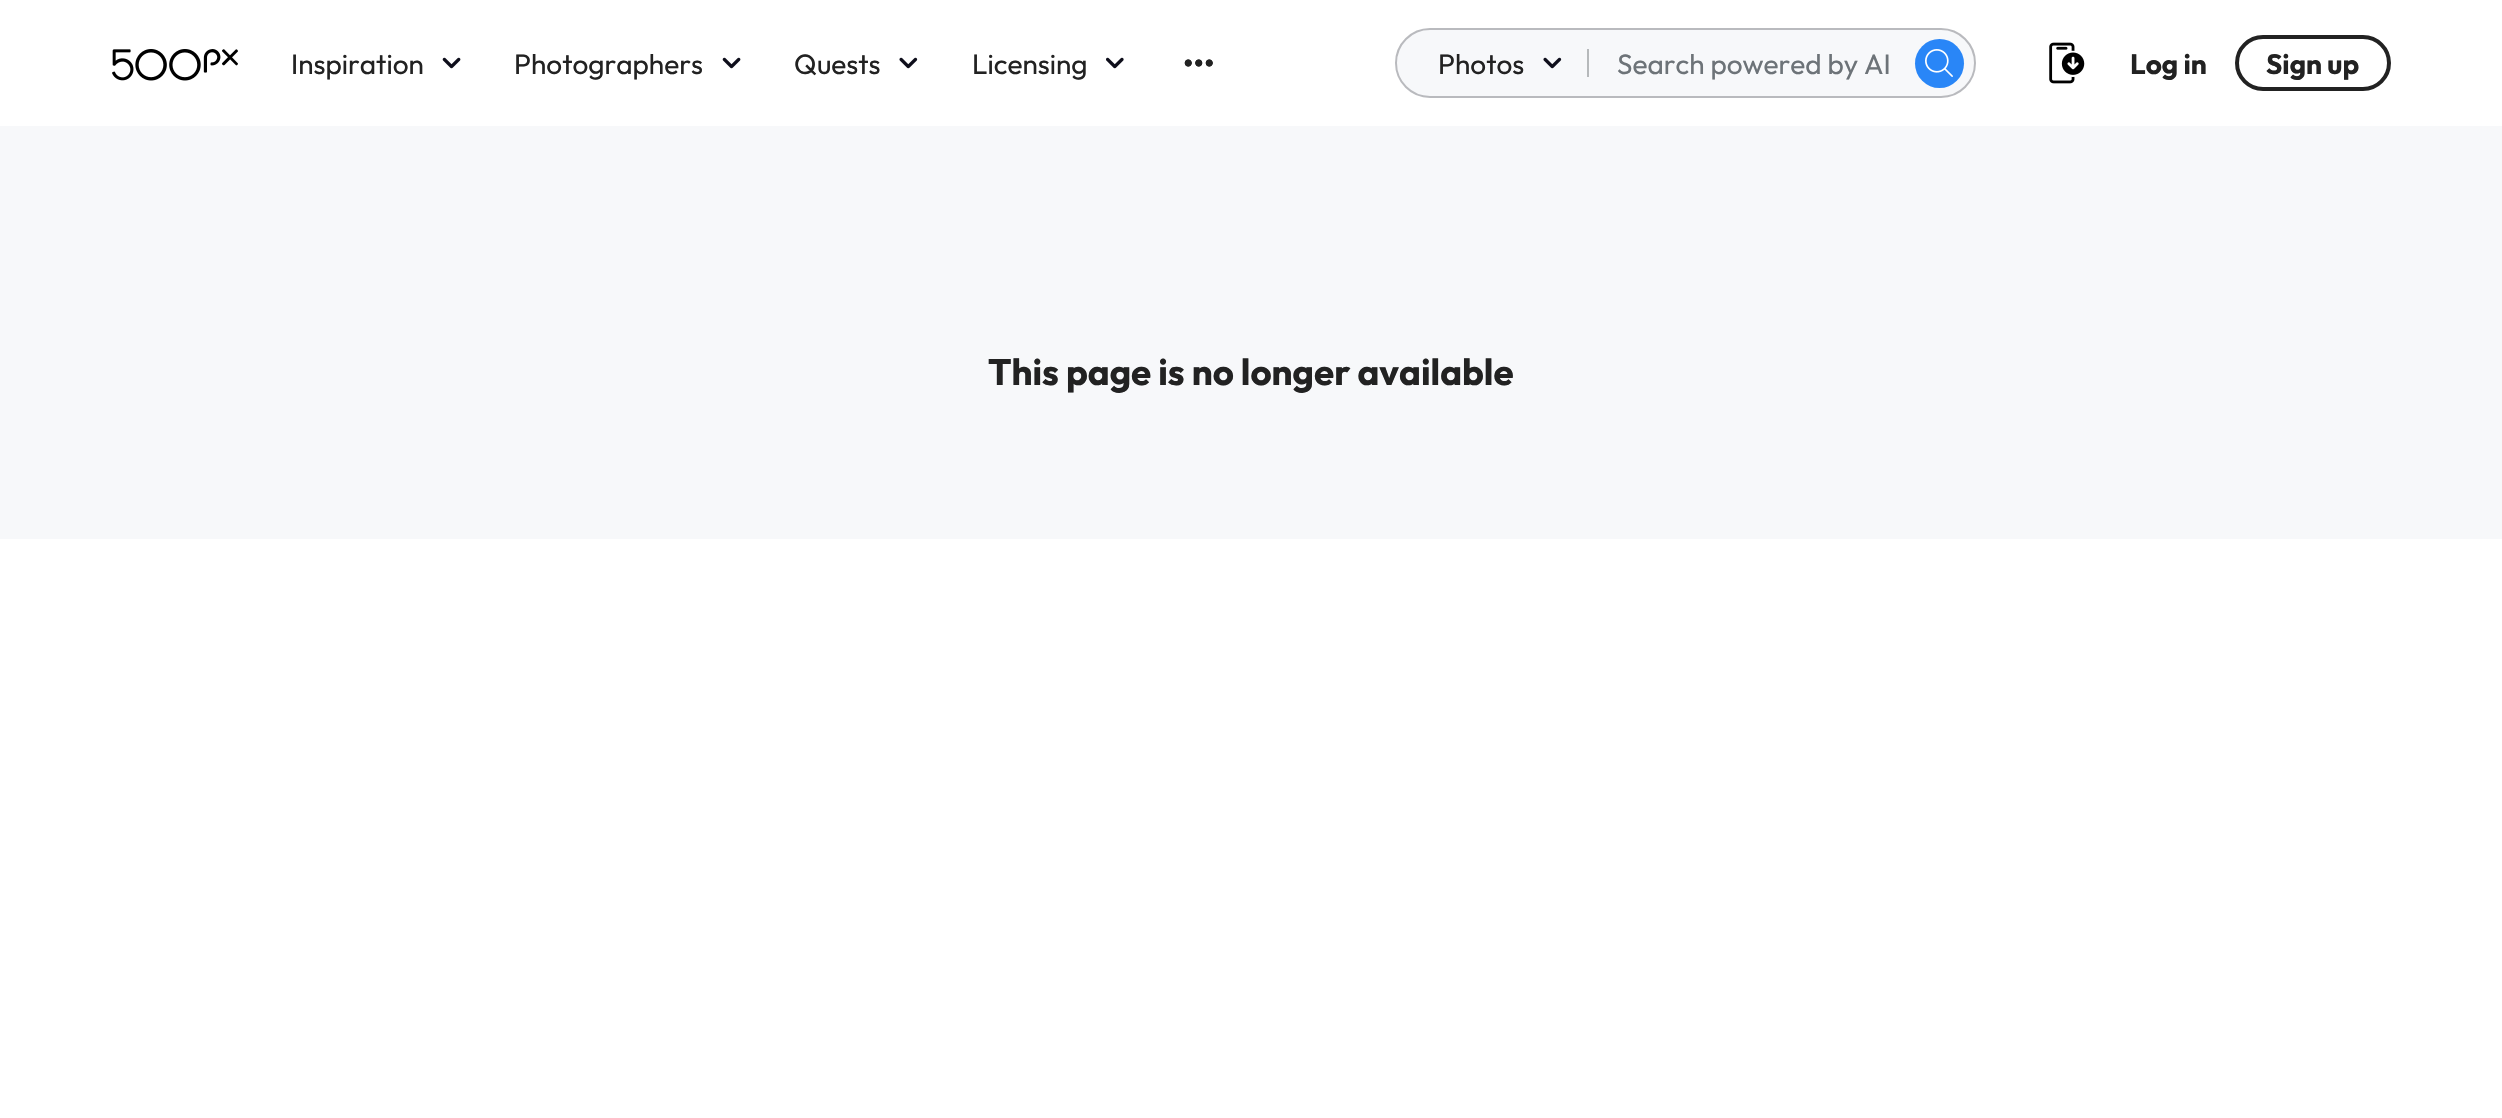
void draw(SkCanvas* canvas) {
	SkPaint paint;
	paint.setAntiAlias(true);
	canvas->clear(0xffffffff);
	canvas->drawImageRect(SkImages::DeferredFromEncodedData(SkData::MakeFromFileName("img1.png")), SkRect::MakeXYWH(112, 49, 126, 32), SkSamplingOptions());
	SkFont f1(fontMgr->matchFamilyStyle("Outfit", SkFontStyle::Normal()), 28);
	f1.setSubpixel(true);
	paint.setColor(0xff222222);
	canvas->drawString("Inspiration", 291, 74, f1, paint);
	canvas->drawImageRect(SkImages::DeferredFromEncodedData(SkData::MakeFromFileName("img2.png")), SkRect::MakeXYWH(442, 57, 19, 12), SkSamplingOptions());
	canvas->drawString("Photographers", 514, 74, f1, paint);
	canvas->drawImageRect(SkImages::DeferredFromEncodedData(SkData::MakeFromFileName("img2.png")), SkRect::MakeXYWH(722, 57, 19, 12), SkSamplingOptions());
	canvas->drawString("Quests", 794, 74, f1, paint);
	canvas->drawImageRect(SkImages::DeferredFromEncodedData(SkData::MakeFromFileName("img3.png")), SkRect::MakeXYWH(899, 57, 19, 12), SkSamplingOptions());
	canvas->drawString("Licensing", 972, 74, f1, paint);
	canvas->drawImageRect(SkImages::DeferredFromEncodedData(SkData::MakeFromFileName("img4.png")), SkRect::MakeXYWH(1106, 57, 18, 12), SkSamplingOptions());
	canvas->drawImageRect(SkImages::DeferredFromEncodedData(SkData::MakeFromFileName("img5.png")), SkRect::MakeXYWH(1184, 59, 29, 8), SkSamplingOptions());
	paint.setColor(0xfff7f8fa);
	canvas->drawRoundRect(SkRect::MakeXYWH(1396, 29, 579, 68), 34, 34, paint);
	paint.setStroke(true);
	paint.setStrokeWidth(2);
	paint.setColor(0xffb9babe);
	canvas->drawRoundRect(SkRect::MakeXYWH(1396, 29, 579, 68), 34, 34, paint);
	paint.setStroke(false);
	paint.setColor(0xff222222);
	canvas->drawString("Photos", 1438, 74, f1, paint);
	canvas->drawImageRect(SkImages::DeferredFromEncodedData(SkData::MakeFromFileName("img6.png")), SkRect::MakeXYWH(1543, 57, 19, 12), SkSamplingOptions());
	paint.setColor(0xffb6b9bb);
	canvas->drawRect(SkRect::MakeXYWH(1587, 49, 2, 28), paint);
	paint.setColor(0xff6d7378);
	canvas->drawString("Search powered by AI", 1617, 74, f1, paint);
	paint.setColor(0xff2986f7);
	canvas->drawCircle(1939.5, 63.5, 24.5, paint);
	canvas->drawImageRect(SkImages::DeferredFromEncodedData(SkData::MakeFromFileName("img7.png")), SkRect::MakeXYWH(1925, 49, 28, 28), SkSamplingOptions());
	canvas->drawImageRect(SkImages::DeferredFromEncodedData(SkData::MakeFromFileName("img8.png")), SkRect::MakeXYWH(2049, 42, 36, 42), SkSamplingOptions());
	SkFont f2(fontMgr->matchFamilyStyle("Outfit", SkFontStyle::Bold()), 28);
	f2.setSubpixel(true);
	paint.setColor(0xff222222);
	canvas->drawString("Log in", 2130, 74, f2, paint);
	paint.setStroke(true);
	paint.setStrokeWidth(4);
	canvas->drawRoundRect(SkRect::MakeXYWH(2237, 37, 152, 52), 26, 26, paint);
	paint.setStroke(false);
	canvas->drawString("Sign up", 2266, 74, f2, paint);
	paint.setColor(0xfff7f8fa);
	canvas->drawRect(SkRect::MakeXYWH(0, 126, 2502, 413), paint);
	SkFont f3(fontMgr->matchFamilyStyle("Outfit", SkFontStyle::Bold()), 36.75);
	f3.setSubpixel(true);
	paint.setColor(0xff222222);
	canvas->drawString("This page is no longer available", 988, 385, f3, paint);
}
